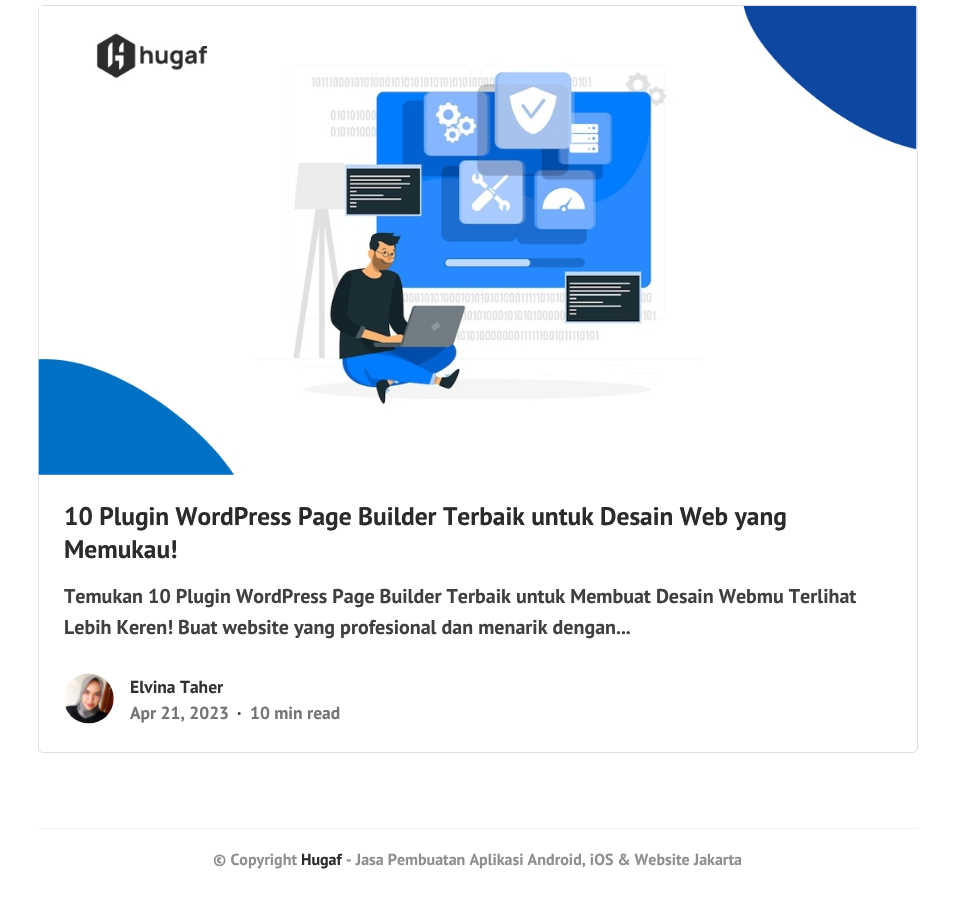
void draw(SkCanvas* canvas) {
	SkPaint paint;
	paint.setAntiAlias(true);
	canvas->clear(0xffffffff);
	paint.setStroke(true);
	paint.setStrokeWidth(1);
	paint.setColor(0xffdfdfdf);
	canvas->drawRoundRect(SkRect::MakeXYWH(38.5, 5.5, 879, 747), 4.5, 4.5, paint);
	canvas->drawImageRect(SkImages::DeferredFromEncodedData(SkData::MakeFromFileName("img1.png")), SkRect::MakeXYWH(38, 6, 879, 469), SkSamplingOptions());
	SkFont f1(fontMgr->matchFamilyStyle("PT Sans", SkFontStyle::Bold()), 25.4);
	f1.setSubpixel(true);
	paint.setStroke(false);
	paint.setColor(0xff292b2c);
	canvas->drawString("10 Plugin WordPress Page Builder Terbaik untuk Desain Web yang", 64, 525, f1, paint);
	canvas->drawString("Memukau!", 64, 558, f1, paint);
	SkFont f2(fontMgr->matchFamilyStyle("PT Sans", SkFontStyle::Bold()), 20);
	f2.setSubpixel(true);
	paint.setColor(0xff3e4041);
	canvas->drawString("Temukan 10 Plugin WordPress Page Builder Terbaik untuk Membuat Desain Webmu Terlihat", 64, 603, f2, paint);
	canvas->drawString("Lebih Keren! Buat website yang profesional dan menarik dengan...", 64, 634, f2, paint);
	canvas->drawImageRect(SkImages::DeferredFromEncodedData(SkData::MakeFromFileName("img2.png")), SkRect::MakeXYWH(64, 673, 50, 51), SkSamplingOptions());
	SkFont f3(fontMgr->matchFamilyStyle("PT Sans", SkFontStyle::Bold()), 17.5);
	f3.setSubpixel(true);
	paint.setColor(0xff333333);
	canvas->drawString("Elvina Taher", 130, 693, f3, paint);
	paint.setColor(0xff757575);
	canvas->drawString("Apr 21, 2023", 130, 719, f3, paint);
	paint.setColor(0xff292b2c);
	canvas->drawString("·", 237, 719, f3, paint);
	paint.setColor(0xff757575);
	canvas->drawString("10 min read", 250, 719, f3, paint);
	paint.setColor(0xfff2f2f2);
	canvas->drawRect(SkRect::MakeXYWH(38, 828, 880, 1), paint);
	SkFont f4(fontMgr->matchFamilyStyle("PT Sans", SkFontStyle::Bold()), 16);
	f4.setSubpixel(true);
	paint.setColor(0xff8f8f8f);
	canvas->drawString("© Copyright", 213, 865, f4, paint);
	paint.setColor(0xff292b2c);
	canvas->drawString("Hugaf", 301, 865, f4, paint);
	paint.setColor(0xff8f8f8f);
	canvas->drawString("- Jasa Pembuatan Aplikasi Android, iOS & Website Jakarta", 346, 865, f4, paint);
}
